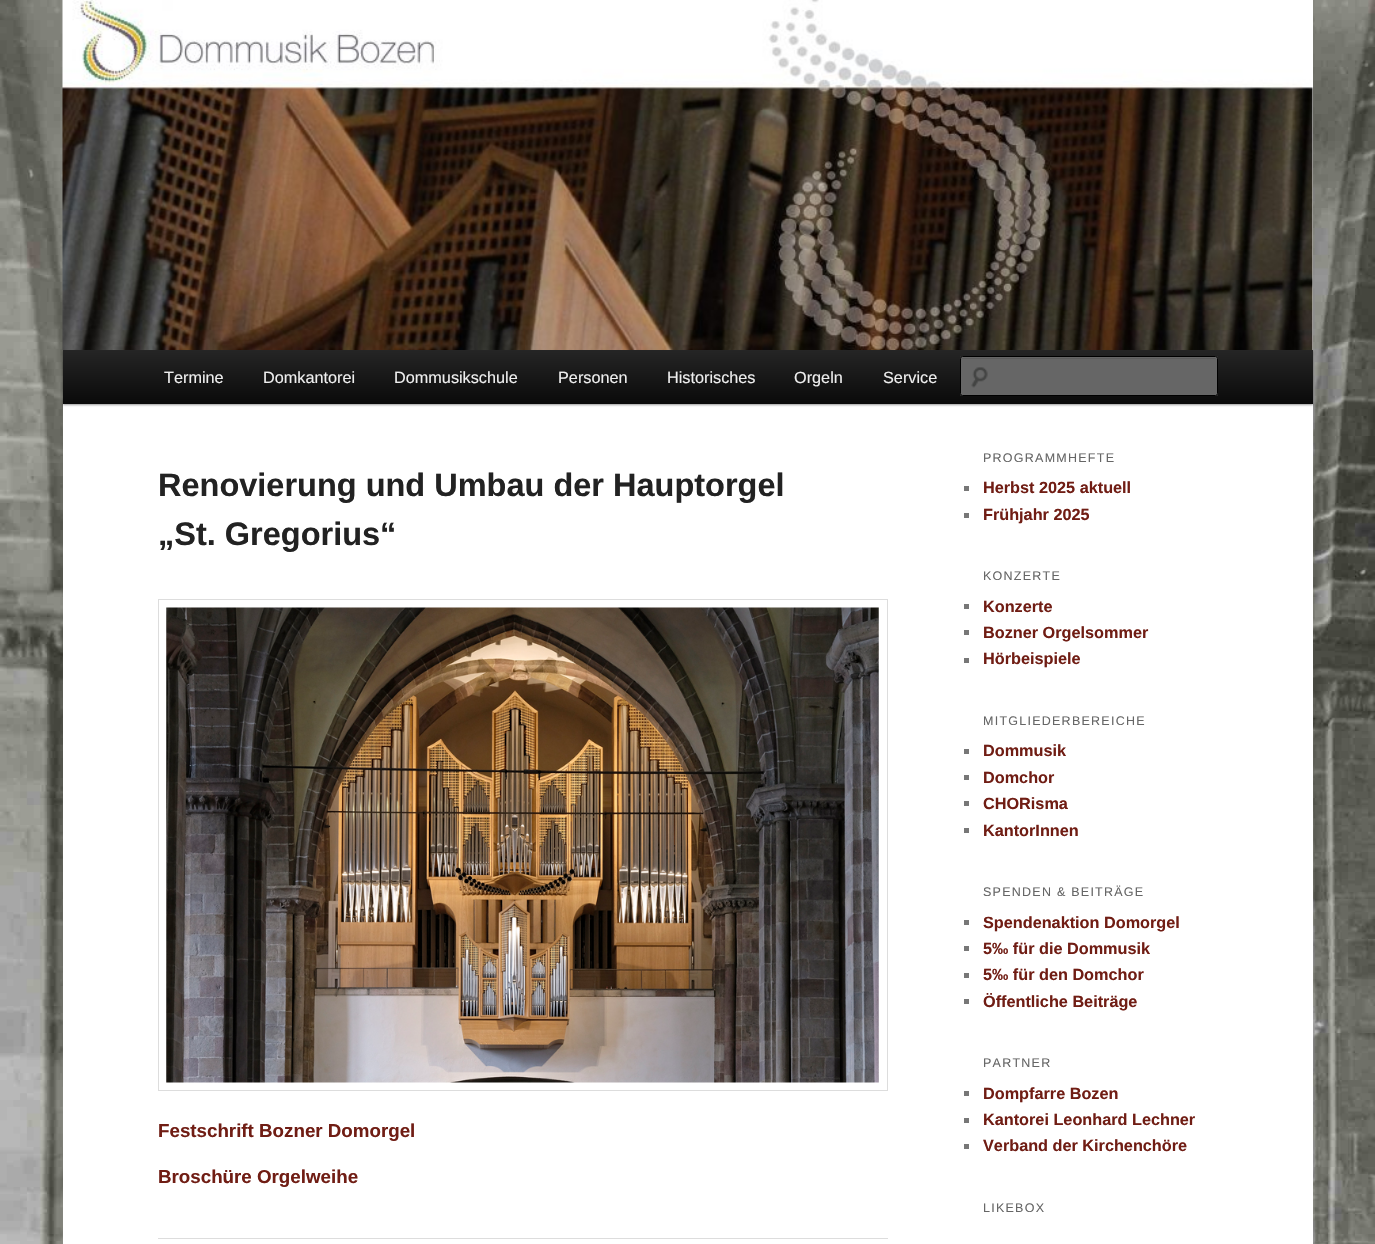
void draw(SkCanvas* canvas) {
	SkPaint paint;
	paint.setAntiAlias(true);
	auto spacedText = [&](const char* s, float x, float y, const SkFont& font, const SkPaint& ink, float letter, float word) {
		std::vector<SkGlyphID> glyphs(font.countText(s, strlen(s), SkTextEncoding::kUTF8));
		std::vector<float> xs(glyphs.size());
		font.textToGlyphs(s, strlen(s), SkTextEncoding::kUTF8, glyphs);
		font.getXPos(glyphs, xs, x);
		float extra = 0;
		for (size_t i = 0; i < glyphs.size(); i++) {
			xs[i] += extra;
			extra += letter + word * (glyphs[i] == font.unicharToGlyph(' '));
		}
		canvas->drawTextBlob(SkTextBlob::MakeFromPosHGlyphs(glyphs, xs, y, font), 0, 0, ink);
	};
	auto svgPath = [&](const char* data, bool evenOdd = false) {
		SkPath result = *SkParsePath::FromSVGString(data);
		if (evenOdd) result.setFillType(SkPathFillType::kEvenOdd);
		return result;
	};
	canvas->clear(0xffffffff);
	canvas->drawImageRect(SkImages::DeferredFromEncodedData(SkData::MakeFromFileName("img1.png")), SkRect::MakeXYWH(0, 0, 1375, 1244), SkSamplingOptions());
	paint.setColor(0xffffffff);
	canvas->drawRect(SkRect::MakeXYWH(63, 0, 1250, 1244), paint);
	paint.setColor(0x66000000);
	paint.setMaskFilter(SkMaskFilter::MakeBlur(kNormal_SkBlurStyle, 1));
	canvas->drawRect(SkRect::MakeXYWH(63, 351, 1250, 54), paint);
	paint.setMaskFilter(nullptr);
	canvas->drawImageRect(SkImages::DeferredFromEncodedData(SkData::MakeFromFileName("img2.png")), SkRect::MakeXYWH(62, 0, 1251, 350), SkSamplingOptions());
	{
		const SkColor colors[] = {0xff252525, 0xff0a0a0a};
		const float stops[] = {0, 1};
		const SkPoint ends[] = {{688, 350}, {688, 404}};
		paint.setShader(SkGradientShader::MakeLinear(ends, colors, stops, 2, SkTileMode::kClamp));
		paint.setAlpha(255);
	}
	canvas->drawRect(SkRect::MakeXYWH(63, 350, 1250, 54), paint);
	SkFont f1(fontMgr->matchFamilyStyle("Liberation Sans", SkFontStyle::Normal()), 16.25);
	f1.setSubpixel(true);
	paint.setShader(nullptr);
	paint.setColor(0xffeeeeee);
	canvas->drawString("Termine", 164, 383, f1, paint);
	canvas->drawString("Domkantorei", 263, 383, f1, paint);
	canvas->drawString("Dommusikschule", 394, 383, f1, paint);
	canvas->drawString("Personen", 558, 383, f1, paint);
	canvas->drawString("Historisches", 667, 383, f1, paint);
	canvas->drawString("Orgeln", 794, 383, f1, paint);
	canvas->drawString("Service", 883, 383, f1, paint);
	paint.setColor(0xff666666);
	canvas->drawRoundRect(SkRect::MakeXYWH(960, 356, 258, 40), 2.5, 2.5, paint);
	canvas->drawImageRect(SkImages::DeferredFromEncodedData(SkData::MakeFromFileName("img3.png")), SkRect::MakeXYWH(971, 367, 17, 21), SkSamplingOptions());
	paint.setColor(0xff5c5c5c);
	canvas->drawPath(svgPath("M962 359H1215C1216 359 1216 359 1216 360C1216 359 1216 358 1215 358H961V360Z"), paint);
	paint.setStroke(true);
	paint.setStrokeWidth(1);
	paint.setColor(0xff000000);
	canvas->drawRoundRect(SkRect::MakeXYWH(960.5, 356.5, 257, 39), 2, 2, paint);
	paint.setStroke(false);
	paint.setColor(0xffdddddd);
	canvas->drawRect(SkRect::MakeXYWH(158, 1238, 730, 1), paint);
	SkFont f2(fontMgr->matchFamilyStyle("Liberation Sans", SkFontStyle::Bold()), 32.5);
	f2.setSubpixel(true);
	paint.setColor(0xff222222);
	canvas->drawString("Renovierung und Umbau der Hauptorgel", 158, 496, f2, paint);
	canvas->drawString("„St. Gregorius“", 158, 545, f2, paint);
	paint.setStroke(true);
	paint.setColor(0xffdddddd);
	canvas->drawRect(SkRect::MakeXYWH(158.5, 599.5, 729, 491), paint);
	canvas->drawImageRect(SkImages::DeferredFromEncodedData(SkData::MakeFromFileName("img4.png")), SkRect::MakeXYWH(166, 607, 713, 476), SkSamplingOptions());
	SkFont f3(fontMgr->matchFamilyStyle("Liberation Sans", SkFontStyle::Bold()), 18.75);
	f3.setSubpixel(true);
	paint.setStroke(false);
	paint.setColor(0xff701d14);
	canvas->drawString("Festschrift Bozner Domorgel", 158, 1137, f3, paint);
	canvas->drawString("Broschüre Orgelweihe", 158, 1183, f3, paint);
	SkFont f4(fontMgr->matchFamilyStyle("Liberation Sans", SkFontStyle::Normal()), 12.5);
	f4.setSubpixel(true);
	paint.setColor(0xff666666);
	spacedText("PROGRAMMHEFTE", 983, 462, f4, paint, 1.25, 0);
	paint.setColor(0xff777777);
	canvas->drawRect(SkRect::MakeXYWH(964, 486, 5, 5), paint);
	SkFont f5(fontMgr->matchFamilyStyle("Liberation Sans", SkFontStyle::Bold()), 16.25);
	f5.setSubpixel(true);
	paint.setColor(0xff701d14);
	canvas->drawString("Herbst 2025 aktuell", 983, 493, f5, paint);
	paint.setColor(0xff777777);
	canvas->drawRect(SkRect::MakeXYWH(964, 513, 5, 5), paint);
	paint.setColor(0xff701d14);
	canvas->drawString("Frühjahr 2025", 983, 520, f5, paint);
	paint.setColor(0xff666666);
	spacedText("KONZERTE", 983, 580, f4, paint, 1.25, 0);
	paint.setColor(0xff777777);
	canvas->drawRect(SkRect::MakeXYWH(964, 604, 5, 5), paint);
	paint.setColor(0xff701d14);
	canvas->drawString("Konzerte", 983, 612, f5, paint);
	paint.setColor(0xff777777);
	canvas->drawRect(SkRect::MakeXYWH(964, 630, 5, 5), paint);
	paint.setColor(0xff701d14);
	canvas->drawString("Bozner Orgelsommer", 983, 638, f5, paint);
	paint.setColor(0xff777777);
	canvas->drawRect(SkRect::MakeXYWH(964, 658, 5, 5), paint);
	paint.setColor(0xff701d14);
	canvas->drawString("Hörbeispiele", 983, 664, f5, paint);
	paint.setColor(0xff666666);
	spacedText("MITGLIEDERBEREICHE", 983, 725, f4, paint, 1.25, 0);
	paint.setColor(0xff777777);
	canvas->drawRect(SkRect::MakeXYWH(964, 749, 5, 5), paint);
	paint.setColor(0xff701d14);
	canvas->drawString("Dommusik", 983, 756, f5, paint);
	paint.setColor(0xff777777);
	canvas->drawRect(SkRect::MakeXYWH(964, 775, 5, 5), paint);
	paint.setColor(0xff701d14);
	canvas->drawString("Domchor", 983, 783, f5, paint);
	paint.setColor(0xff777777);
	canvas->drawRect(SkRect::MakeXYWH(964, 801, 5, 5), paint);
	paint.setColor(0xff701d14);
	canvas->drawString("CHORisma", 983, 809, f5, paint);
	paint.setColor(0xff777777);
	canvas->drawRect(SkRect::MakeXYWH(964, 828, 5, 5), paint);
	paint.setColor(0xff701d14);
	canvas->drawString("KantorInnen", 983, 836, f5, paint);
	paint.setColor(0xff666666);
	spacedText("SPENDEN & BEITRÄGE", 983, 896, f4, paint, 1.25, 0);
	paint.setColor(0xff777777);
	canvas->drawRect(SkRect::MakeXYWH(964, 920, 5, 5), paint);
	paint.setColor(0xff701d14);
	canvas->drawString("Spendenaktion Domorgel", 983, 928, f5, paint);
	paint.setColor(0xff777777);
	canvas->drawRect(SkRect::MakeXYWH(964, 946, 5, 5), paint);
	paint.setColor(0xff701d14);
	canvas->drawString("5‰ für die Dommusik", 983, 954, f5, paint);
	paint.setColor(0xff777777);
	canvas->drawRect(SkRect::MakeXYWH(964, 973, 5, 5), paint);
	paint.setColor(0xff701d14);
	canvas->drawString("5‰ für den Domchor", 983, 980, f5, paint);
	paint.setColor(0xff777777);
	canvas->drawRect(SkRect::MakeXYWH(964, 999, 5, 5), paint);
	paint.setColor(0xff701d14);
	canvas->drawString("Öffentliche Beiträge", 983, 1007, f5, paint);
	paint.setColor(0xff666666);
	spacedText("PARTNER", 983, 1067, f4, paint, 1.25, 0);
	paint.setColor(0xff777777);
	canvas->drawRect(SkRect::MakeXYWH(964, 1091, 5, 5), paint);
	paint.setColor(0xff701d14);
	canvas->drawString("Dompfarre Bozen", 983, 1099, f5, paint);
	paint.setColor(0xff777777);
	canvas->drawRect(SkRect::MakeXYWH(964, 1118, 5, 5), paint);
	paint.setColor(0xff701d14);
	canvas->drawString("Kantorei Leonhard Lechner", 983, 1125, f5, paint);
	paint.setColor(0xff777777);
	canvas->drawRect(SkRect::MakeXYWH(964, 1144, 5, 5), paint);
	paint.setColor(0xff701d14);
	canvas->drawString("Verband der Kirchenchöre", 983, 1151, f5, paint);
	paint.setColor(0xff666666);
	spacedText("LIKEBOX", 983, 1212, f4, paint, 1.25, 0);
}
